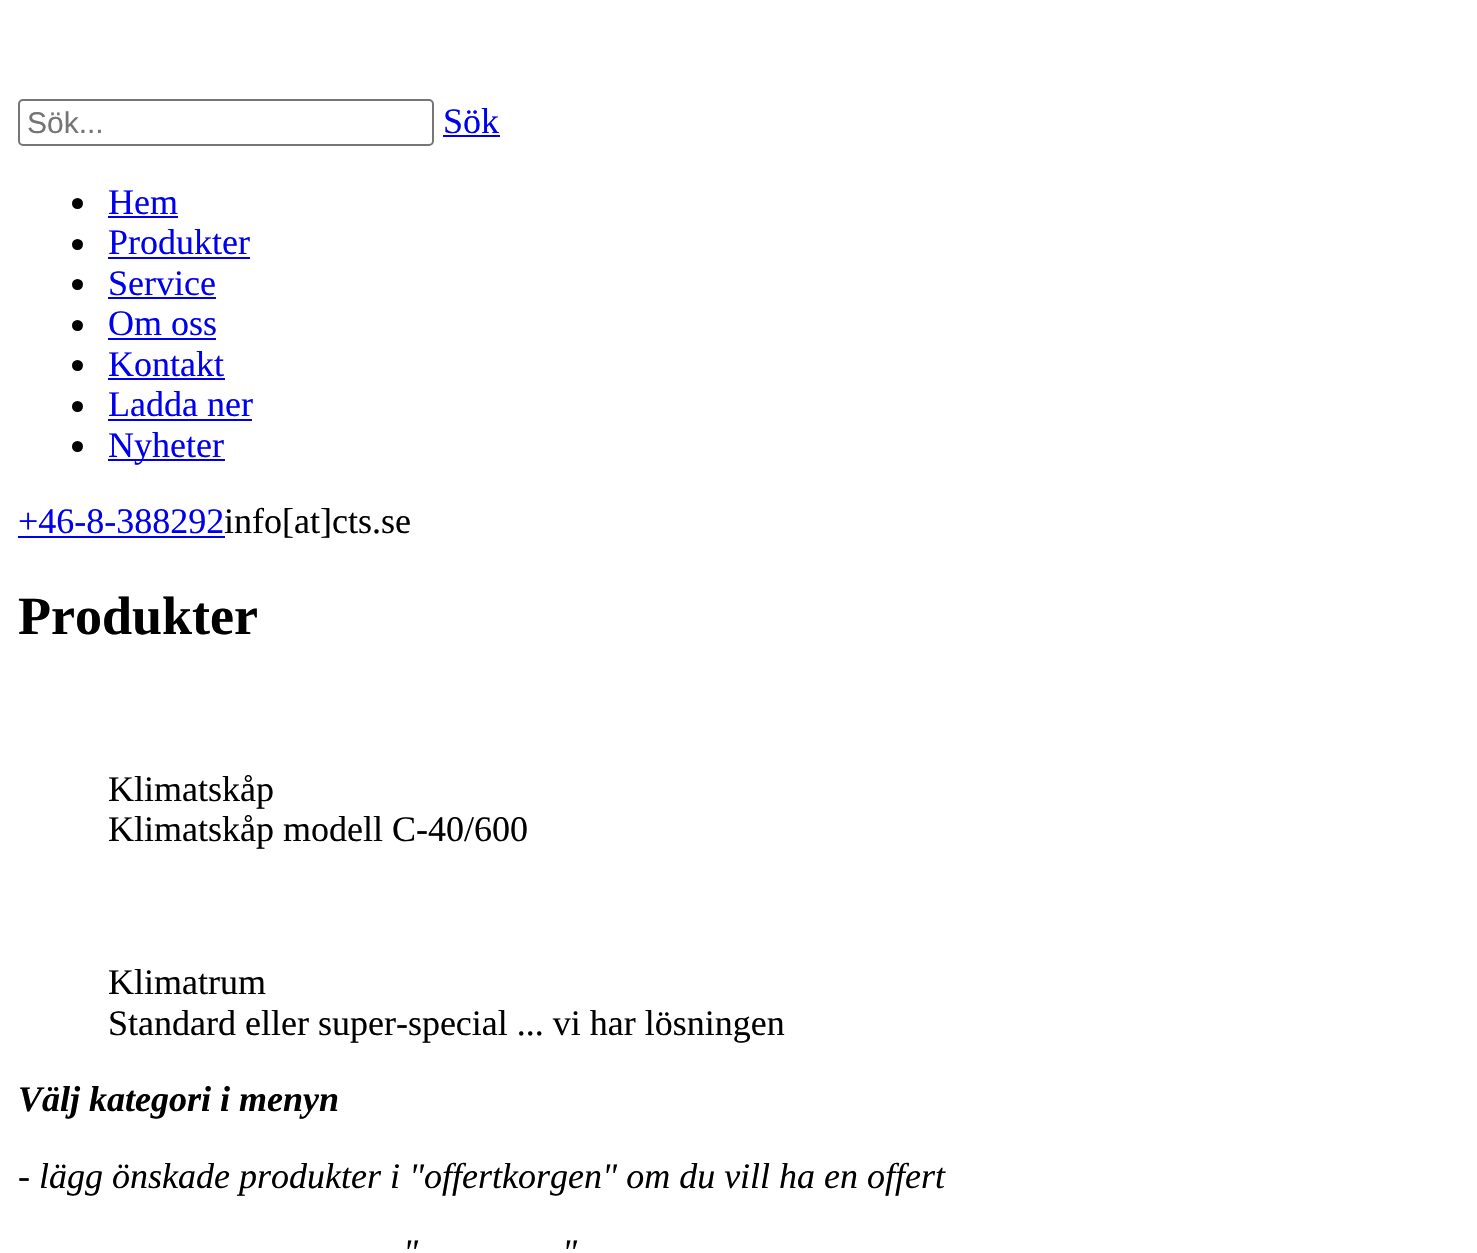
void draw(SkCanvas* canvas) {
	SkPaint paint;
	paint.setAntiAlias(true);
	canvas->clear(0xffffffff);
	paint.setStroke(true);
	paint.setStrokeWidth(2);
	paint.setColor(0xff767676);
	canvas->drawRoundRect(SkRect::MakeXYWH(19, 100, 414, 45), 4, 4, paint);
	SkFont f1(fontMgr->matchFamilyStyle("Liberation Sans", SkFontStyle::Normal()), 30);
	f1.setSubpixel(true);
	paint.setStroke(false);
	paint.setColor(0xff757575);
	canvas->drawString("Sök...", 27, 133, f1, paint);
	SkFont f2(fontMgr->matchFamilyStyle("Liberation Serif", SkFontStyle::Normal()), 36);
	f2.setSubpixel(true);
	paint.setColor(0xff0000ee);
	canvas->drawString("Sök", 443, 133, f2, paint);
	canvas->drawRect(SkRect::MakeXYWH(443, 135, 57, 2), paint);
	paint.setColor(0xff000000);
	canvas->drawCircle(77.5, 203.5, 5.5, paint);
	paint.setColor(0xff0000ee);
	canvas->drawString("Hem", 108, 214, f2, paint);
	canvas->drawRect(SkRect::MakeXYWH(108, 216, 70, 2), paint);
	paint.setColor(0xff000000);
	canvas->drawCircle(77.5, 244.5, 5.5, paint);
	paint.setColor(0xff0000ee);
	canvas->drawString("Produkter", 108, 254, f2, paint);
	canvas->drawRect(SkRect::MakeXYWH(108, 257, 142, 2), paint);
	paint.setColor(0xff000000);
	canvas->drawCircle(77.5, 284.5, 5.5, paint);
	paint.setColor(0xff0000ee);
	canvas->drawString("Service", 108, 295, f2, paint);
	canvas->drawRect(SkRect::MakeXYWH(108, 297, 108, 2), paint);
	paint.setColor(0xff000000);
	canvas->drawCircle(77.5, 325.5, 5.5, paint);
	paint.setColor(0xff0000ee);
	canvas->drawString("Om oss", 108, 335, f2, paint);
	canvas->drawRect(SkRect::MakeXYWH(108, 338, 108, 2), paint);
	paint.setColor(0xff000000);
	canvas->drawCircle(77.5, 365.5, 5.5, paint);
	paint.setColor(0xff0000ee);
	canvas->drawString("Kontakt", 108, 376, f2, paint);
	canvas->drawRect(SkRect::MakeXYWH(108, 378, 117, 2), paint);
	paint.setColor(0xff000000);
	canvas->drawCircle(77.5, 406.5, 5.5, paint);
	paint.setColor(0xff0000ee);
	canvas->drawString("Ladda ner", 108, 416, f2, paint);
	canvas->drawRect(SkRect::MakeXYWH(108, 419, 144, 2), paint);
	paint.setColor(0xff000000);
	canvas->drawCircle(77.5, 446.5, 5.5, paint);
	paint.setColor(0xff0000ee);
	canvas->drawRect(SkRect::MakeXYWH(108, 459, 117, 2), paint);
	canvas->drawString("Nyheter", 108, 457, f2, paint);
	canvas->drawString("+46-8-388292", 18, 533, f2, paint);
	canvas->drawRect(SkRect::MakeXYWH(18, 536, 207, 2), paint);
	paint.setColor(0xff000000);
	canvas->drawString("info[at]cts.se", 224, 533, f2, paint);
	SkFont f3(fontMgr->matchFamilyStyle("Liberation Serif", SkFontStyle::Bold()), 54);
	f3.setSubpixel(true);
	canvas->drawString("Produkter", 18, 634, f3, paint);
	canvas->drawString("Klimatskåp", 108, 801, f2, paint);
	canvas->drawString("Klimatskåp modell C-40/600", 108, 841, f2, paint);
	canvas->drawString("Klimatrum", 108, 994, f2, paint);
	canvas->drawString("Standard eller super-special ... vi har lösningen", 108, 1035, f2, paint);
	SkFont f4(fontMgr->matchFamilyStyle("Liberation Serif", SkFontStyle::BoldItalic()), 36);
	f4.setSubpixel(true);
	canvas->drawString("Välj kategori i menyn", 18, 1111, f4, paint);
	SkFont f5(fontMgr->matchFamilyStyle("Liberation Serif", SkFontStyle::Italic()), 36);
	f5.setSubpixel(true);
	canvas->drawString("- lägg önskade produkter i \"offertkorgen\" om du vill ha en offert", 18, 1188, f5, paint);
	canvas->drawString("\"", 403, 1264, f5, paint);
	canvas->drawString("\"", 562, 1264, f5, paint);
}
